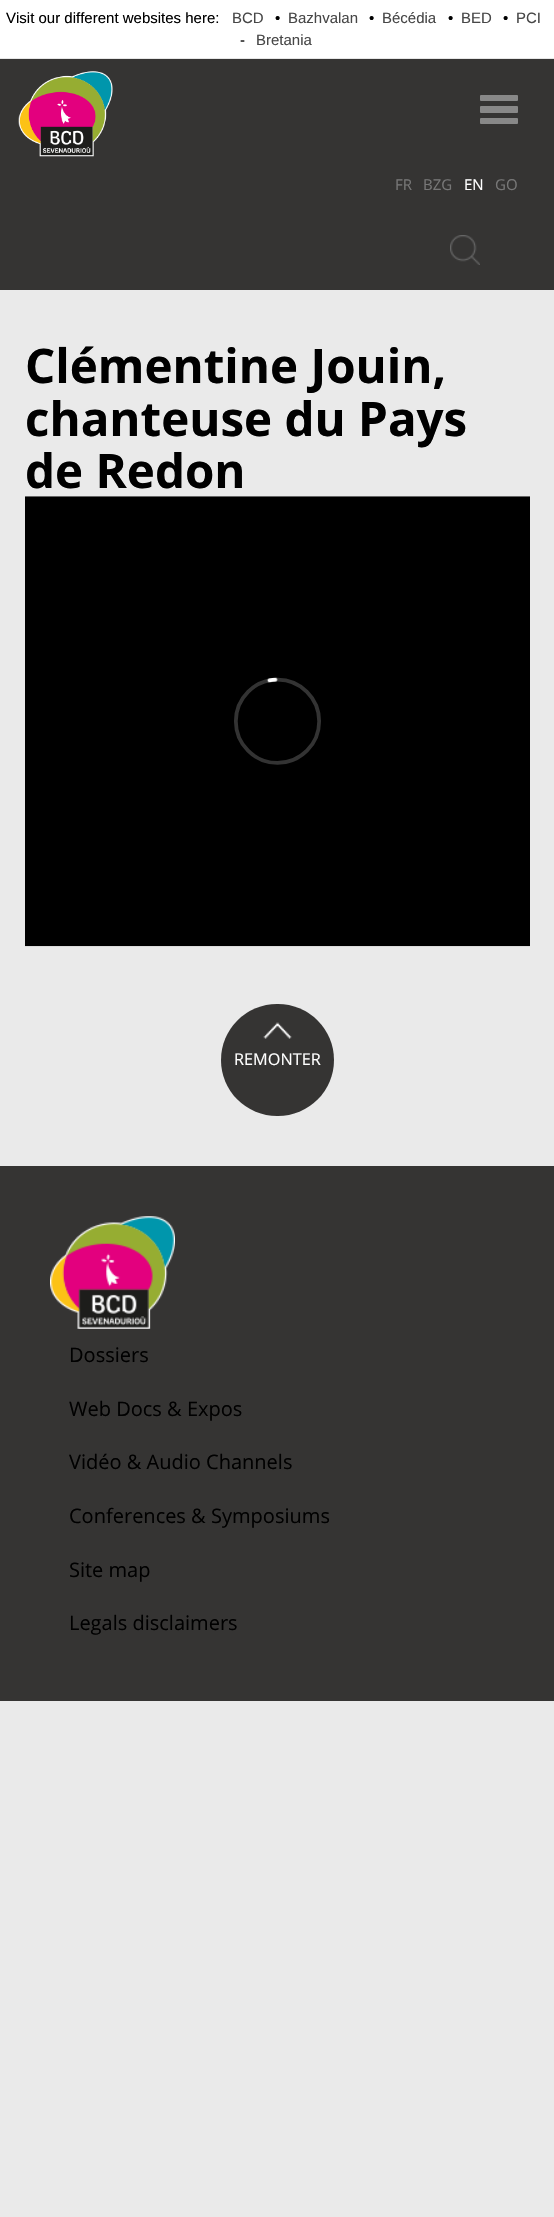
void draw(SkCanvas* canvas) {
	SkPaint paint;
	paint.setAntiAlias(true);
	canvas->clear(0xffeaeaea);
	paint.setColor(0xffffffff);
	canvas->drawRect(SkRect::MakeXYWH(0, 0, 554, 58), paint);
	paint.setColor(0xffe6e6e6);
	canvas->drawRect(SkRect::MakeXYWH(0, 58, 554, 1), paint);
	SkFont f1(fontMgr->matchFamilyStyle("Liberation Sans", SkFontStyle::Normal()), 15);
	f1.setSubpixel(true);
	paint.setColor(0xff000000);
	canvas->drawString("Visit our different websites here:", 6, 23, f1, paint);
	paint.setColor(0xff474747);
	canvas->drawString("BCD", 232, 23, f1, paint);
	paint.setColor(0xff000000);
	canvas->drawString("•", 275, 23, f1, paint);
	paint.setColor(0xff474747);
	canvas->drawString("Bazhvalan", 288, 23, f1, paint);
	paint.setColor(0xff000000);
	canvas->drawString("•", 369, 23, f1, paint);
	paint.setColor(0xff474747);
	canvas->drawString("Bécédia", 382, 23, f1, paint);
	paint.setColor(0xff000000);
	canvas->drawString("•", 448, 23, f1, paint);
	paint.setColor(0xff474747);
	canvas->drawString("BED", 461, 23, f1, paint);
	paint.setColor(0xff000000);
	canvas->drawString("•", 503, 23, f1, paint);
	paint.setColor(0xff474747);
	canvas->drawString("PCI", 516, 23, f1, paint);
	paint.setColor(0xff000000);
	canvas->drawString("-", 240, 45, f1, paint);
	paint.setColor(0xff474747);
	canvas->drawString("Bretania", 256, 45, f1, paint);
	paint.setColor(0xff353433);
	canvas->drawRect(SkRect::MakeXYWH(0, 59, 554, 231), paint);
	canvas->drawImageRect(SkImages::DeferredFromEncodedData(SkData::MakeFromFileName("img1.png")), SkRect::MakeXYWH(18, 71, 95, 86), SkSamplingOptions());
	paint.setColor(0xff888888);
	canvas->drawRoundRect(SkRect::MakeXYWH(480, 95, 38, 6), 1, 1, paint);
	canvas->drawRoundRect(SkRect::MakeXYWH(480, 106, 38, 7), 1, 1, paint);
	canvas->drawRoundRect(SkRect::MakeXYWH(480, 118, 38, 6), 1, 1, paint);
	SkFont f2(fontMgr->matchFamilyStyle("Open Sans", SkFontStyle::Normal()), 15);
	f2.setSubpixel(true);
	paint.setColor(0xff777777);
	canvas->drawString("FR", 395, 190, f2, paint);
	canvas->drawString("BZG", 423, 190, f2, paint);
	paint.setColor(0xffffffff);
	canvas->drawString("EN", 464, 190, f2, paint);
	paint.setColor(0xff777777);
	canvas->drawString("GO", 495, 190, f2, paint);
	canvas->drawImageRect(SkImages::DeferredFromEncodedData(SkData::MakeFromFileName("img2.png")), SkRect::MakeXYWH(450, 235, 30, 30), SkSamplingOptions());
	SkFont f3(fontMgr->matchFamilyStyle("Open Sans", SkFontStyle::Bold()), 47.5);
	f3.setSubpixel(true);
	paint.setColor(0xff000000);
	canvas->drawString("Clémentine Jouin,", 25, 383, f3, paint);
	canvas->drawString("chanteuse du Pays", 25, 436, f3, paint);
	canvas->drawString("de Redon", 25, 488, f3, paint);
	canvas->drawImageRect(SkImages::DeferredFromEncodedData(SkData::MakeFromFileName("img3.png")), SkRect::MakeXYWH(25, 496, 505, 451), SkSamplingOptions());
	paint.setColor(0xff353433);
	canvas->drawRoundRect(SkRect::MakeXYWH(221, 1004, 113, 112), 56, 56, paint);
	canvas->drawImageRect(SkImages::DeferredFromEncodedData(SkData::MakeFromFileName("img4.png")), SkRect::MakeXYWH(263, 1022, 29, 17), SkSamplingOptions());
	SkFont f4(fontMgr->matchFamilyStyle("Open Sans", SkFontStyle::Normal()), 16.25);
	f4.setSubpixel(true);
	paint.setColor(0xffffffff);
	canvas->drawString("REMONTER", 234, 1065, f4, paint);
	paint.setColor(0xff353433);
	canvas->drawRect(SkRect::MakeXYWH(0, 1166, 554, 535), paint);
	canvas->drawImageRect(SkImages::DeferredFromEncodedData(SkData::MakeFromFileName("img5.png")), SkRect::MakeXYWH(50, 1216, 125, 113), SkSamplingOptions());
	SkFont f5(fontMgr->matchFamilyStyle("Open Sans", SkFontStyle::Normal()), 20);
	f5.setSubpixel(true);
	paint.setColor(0xff000000);
	canvas->drawString("Dossiers", 69, 1362, f5, paint);
	canvas->drawString("Web Docs & Expos", 69, 1416, f5, paint);
	canvas->drawString("Vidéo & Audio Channels", 69, 1469, f5, paint);
	canvas->drawString("Conferences & Symposiums", 69, 1523, f5, paint);
	canvas->drawString("Site map", 69, 1577, f5, paint);
	canvas->drawString("Legals disclaimers", 69, 1630, f5, paint);
}
